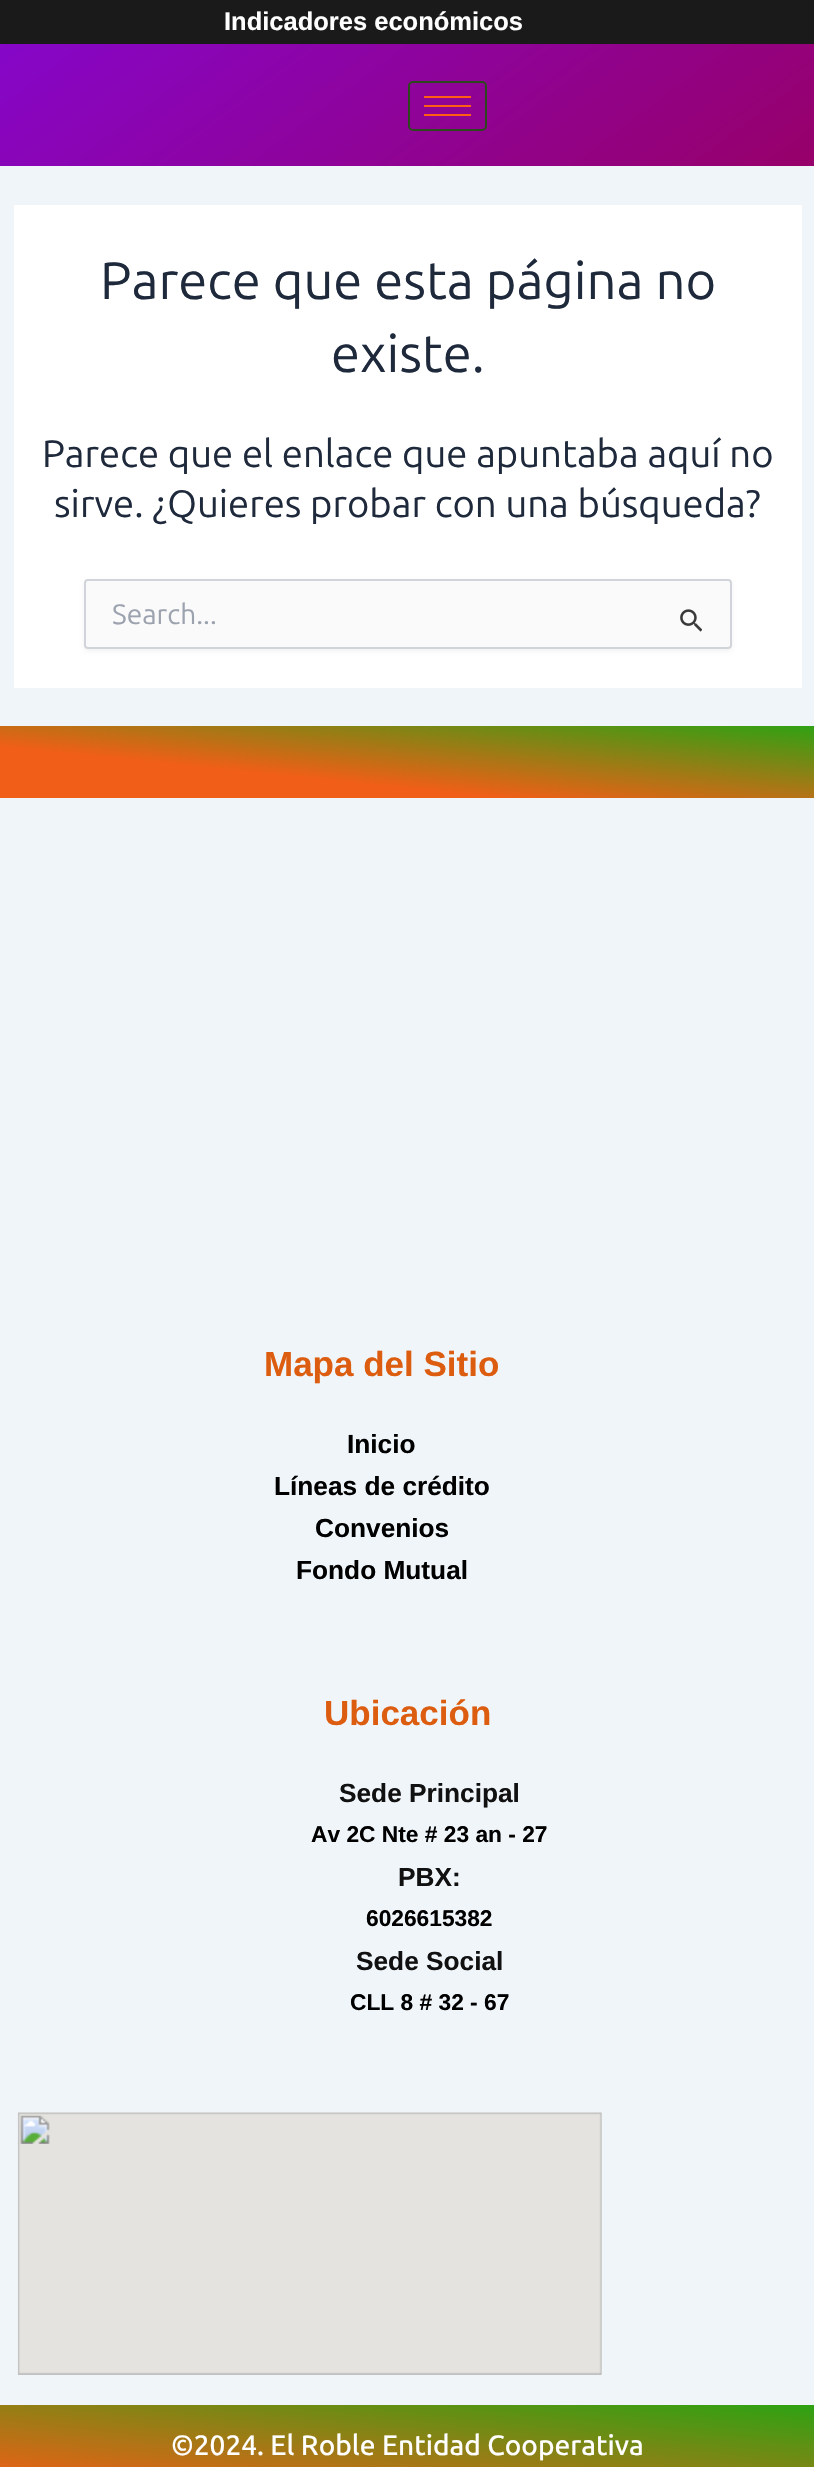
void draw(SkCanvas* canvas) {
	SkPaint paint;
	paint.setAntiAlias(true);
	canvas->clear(0xfff0f5fa);
	paint.setColor(0xff1a1a1a);
	canvas->drawRect(SkRect::MakeXYWH(0, 0, 814, 44), paint);
	SkFont f1(fontMgr->matchFamilyStyle("Liberation Sans", SkFontStyle::Bold()), 25.5);
	f1.setSubpixel(true);
	paint.setColor(0xffffffff);
	canvas->drawString("Indicadores económicos", 224, 30, f1, paint);
	{
		const SkColor colors[] = {0xff8606c9, 0xff970069};
		const float stops[] = {0, 1};
		const SkPoint ends[] = {{231, -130}, {585, 340}};
		paint.setShader(SkGradientShader::MakeLinear(ends, colors, stops, 2, SkTileMode::kClamp));
		paint.setAlpha(255);
	}
	canvas->drawRect(SkRect::MakeXYWH(0, 44, 814, 122), paint);
	paint.setStroke(true);
	paint.setStrokeWidth(2);
	paint.setShader(nullptr);
	paint.setColor(0xff2b491d);
	canvas->drawRoundRect(SkRect::MakeXYWH(409, 82, 77, 48), 4, 4, paint);
	paint.setStroke(false);
	paint.setColor(0xffff5e13);
	canvas->drawRect(SkRect::MakeXYWH(424, 96, 47, 2), paint);
	canvas->drawRect(SkRect::MakeXYWH(424, 105, 47, 2), paint);
	canvas->drawRect(SkRect::MakeXYWH(424, 114, 47, 2), paint);
	paint.setColor(0xffffffff);
	canvas->drawRect(SkRect::MakeXYWH(14, 205, 788, 483), paint);
	SkFont f2(fontMgr->matchFamilyStyle("Ubuntu", SkFontStyle::Normal()), 52.5);
	f2.setSubpixel(true);
	paint.setColor(0xff1e293b);
	canvas->drawString("Parece que esta página no", 100, 299, f2, paint);
	canvas->drawString("existe.", 331, 372, f2, paint);
	SkFont f3(fontMgr->matchFamilyStyle("Ubuntu", SkFontStyle::Normal()), 38.25);
	f3.setSubpixel(true);
	canvas->drawString("Parece que el enlace que apuntaba aquí no", 42, 467, f3, paint);
	canvas->drawString("sirve. ¿Quieres probar con una búsqueda?", 54, 517, f3, paint);
	paint.setColor(0x0d000000);
	paint.setMaskFilter(SkMaskFilter::MakeBlur(kNormal_SkBlurStyle, 2));
	canvas->drawRoundRect(SkRect::MakeXYWH(84, 581, 648, 70), 4, 4, paint);
	paint.setMaskFilter(nullptr);
	paint.setColor(0xfffafafa);
	canvas->drawRoundRect(SkRect::MakeXYWH(85, 580, 646, 68), 3, 3, paint);
	paint.setStroke(true);
	paint.setColor(0xffd1d5db);
	canvas->drawRoundRect(SkRect::MakeXYWH(85, 580, 646, 68), 3, 3, paint);
	SkFont f4(fontMgr->matchFamilyStyle("Ubuntu", SkFontStyle::Normal()), 28);
	f4.setSubpixel(true);
	paint.setStroke(false);
	paint.setColor(0xff9ca3af);
	canvas->drawString("Search...", 112, 624, f4, paint);
	canvas->drawImageRect(SkImages::DeferredFromEncodedData(SkData::MakeFromFileName("img1.png")), SkRect::MakeXYWH(680, 609, 22, 23), SkSamplingOptions());
	{
		const SkColor colors[] = {0xff2da213, 0xfff15e17};
		const float stops[] = {0, 0.67};
		const SkPoint ends[] = {{416, 684}, {400, 840}};
		paint.setShader(SkGradientShader::MakeLinear(ends, colors, stops, 2, SkTileMode::kClamp));
		paint.setAlpha(255);
	}
	canvas->drawRect(SkRect::MakeXYWH(0, 726, 814, 72), paint);
	SkFont f5(fontMgr->matchFamilyStyle("Liberation Sans", SkFontStyle::Bold()), 35);
	f5.setSubpixel(true);
	paint.setShader(nullptr);
	paint.setColor(0xffdd5d10);
	canvas->drawString("Mapa del Sitio", 264, 1376, f5, paint);
	SkFont f6(fontMgr->matchFamilyStyle("Liberation Sans", SkFontStyle::Bold()), 26.25);
	f6.setSubpixel(true);
	paint.setColor(0xff000000);
	canvas->drawString("Inicio", 347, 1453, f6, paint);
	canvas->drawString("Líneas de crédito", 274, 1495, f6, paint);
	canvas->drawString("Convenios", 315, 1537, f6, paint);
	canvas->drawString("Fondo Mutual", 296, 1579, f6, paint);
	paint.setColor(0xffdd5d10);
	canvas->drawString("Ubicación", 324, 1725, f5, paint);
	paint.setColor(0xff111111);
	canvas->drawString("Sede Principal", 339, 1802, f6, paint);
	SkFont f7(fontMgr->matchFamilyStyle("Liberation Sans", SkFontStyle::Bold()), 22.75);
	f7.setSubpixel(true);
	paint.setColor(0xff000000);
	canvas->drawString("Av 2C Nte # 23 an - 27", 311, 1842, f7, paint);
	paint.setColor(0xff111111);
	canvas->drawString("PBX:", 398, 1886, f6, paint);
	paint.setColor(0xff000000);
	canvas->drawString("6026615382", 366, 1926, f7, paint);
	paint.setColor(0xff111111);
	canvas->drawString("Sede Social", 356, 1970, f6, paint);
	paint.setColor(0xff000000);
	canvas->drawString("CLL 8 # 32 - 67", 350, 2010, f7, paint);
	canvas->drawImageRect(SkImages::DeferredFromEncodedData(SkData::MakeFromFileName("img2.png")), SkRect::MakeXYWH(17, 2112, 585, 263), SkSamplingOptions());
	{
		const SkColor colors[] = {0xff2da213, 0xfff15e17};
		const float stops[] = {0, 0.67};
		const SkPoint ends[] = {{421, 2363}, {395, 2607}};
		paint.setShader(SkGradientShader::MakeLinear(ends, colors, stops, 2, SkTileMode::kClamp));
		paint.setAlpha(255);
	}
	canvas->drawRect(SkRect::MakeXYWH(0, 2405, 814, 62), paint);
	SkFont f8(fontMgr->matchFamilyStyle("Ubuntu", SkFontStyle(500, SkFontStyle::kNormal_Width, SkFontStyle::kUpright_Slant)), 28);
	f8.setSubpixel(true);
	paint.setShader(nullptr);
	paint.setColor(0xffffffff);
	canvas->drawString("©2024. El Roble Entidad Cooperativa", 171, 2455, f8, paint);
}
